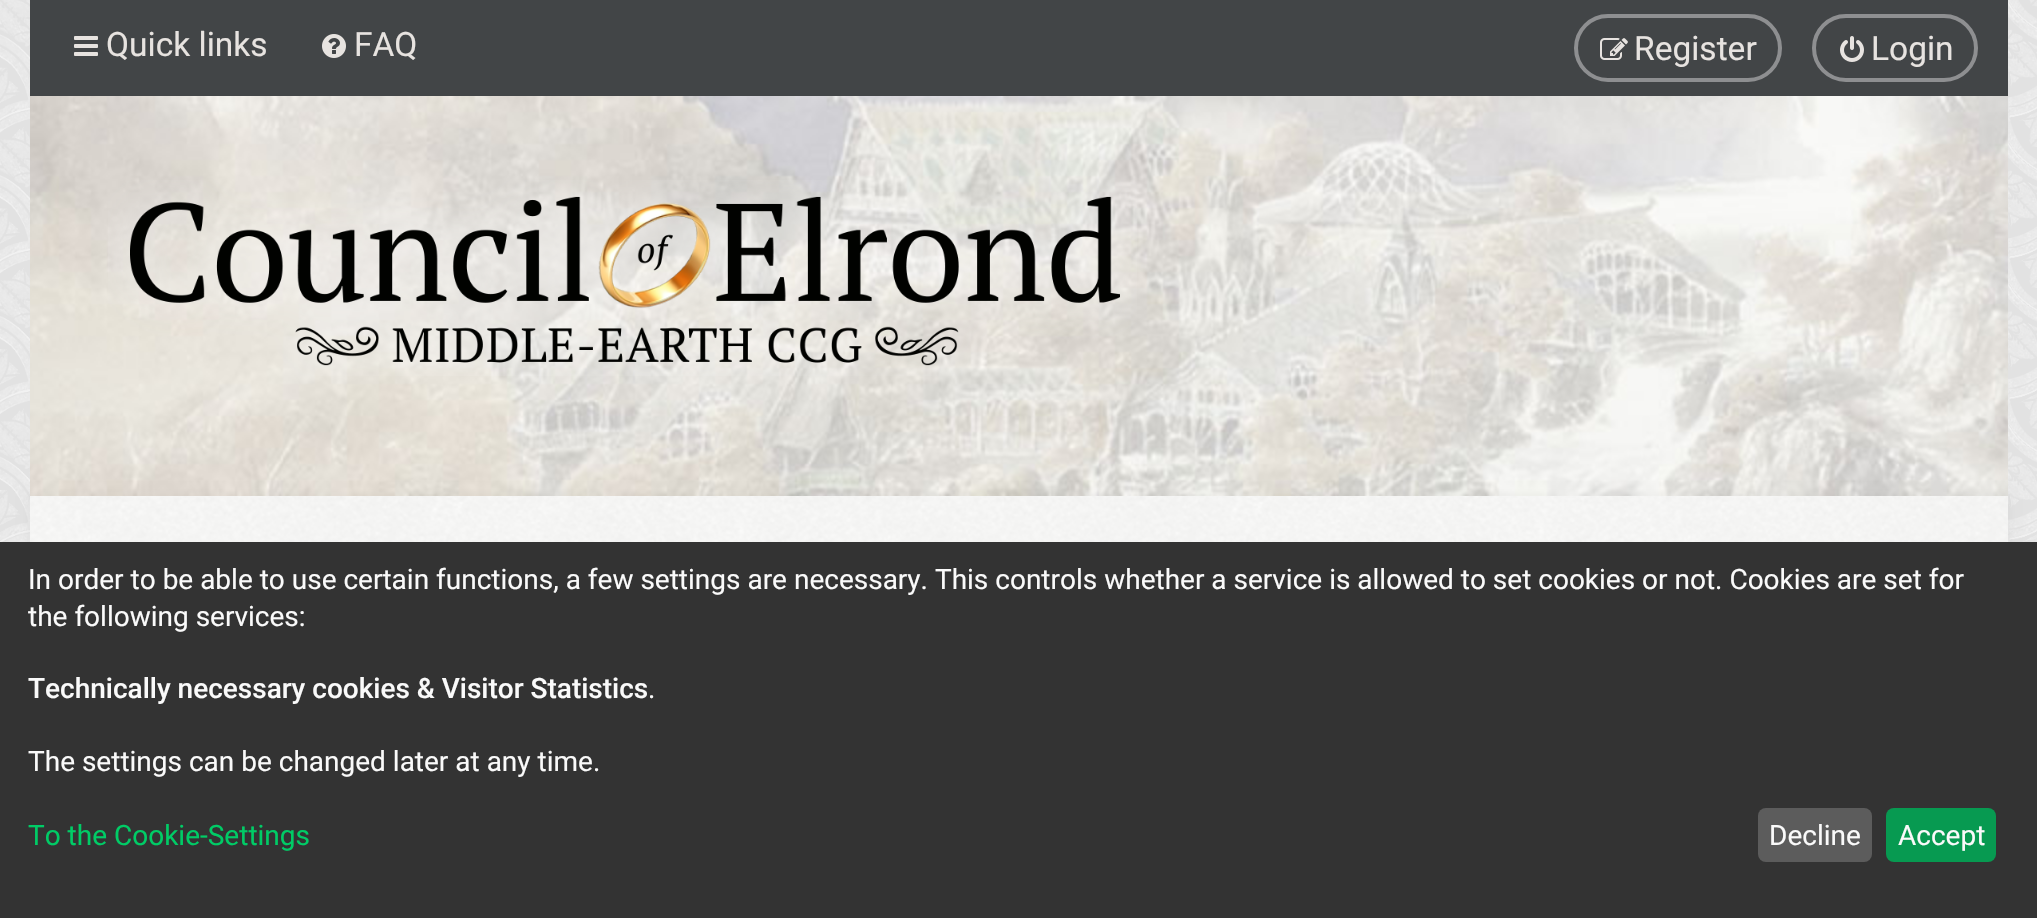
void draw(SkCanvas* canvas) {
	SkPaint paint;
	paint.setAntiAlias(true);
	canvas->clear(0xffffffff);
	canvas->drawImageRect(SkImages::DeferredFromEncodedData(SkData::MakeFromFileName("img1.png")), SkRect::MakeXYWH(0, 0, 2037, 542), SkSamplingOptions());
	paint.setColor(0xff424547);
	canvas->drawRect(SkRect::MakeXYWH(30, 0, 1978, 96), paint);
	canvas->drawImageRect(SkImages::DeferredFromEncodedData(SkData::MakeFromFileName("img2.png")), SkRect::MakeXYWH(74, 36, 24, 20), SkSamplingOptions());
	SkFont f1(fontMgr->matchFamilyStyle("Roboto", SkFontStyle::Normal()), 33.5);
	f1.setSubpixel(true);
	paint.setColor(0xffe7e3e0);
	canvas->drawString("Quick links", 106, 56, f1, paint);
	canvas->drawImageRect(SkImages::DeferredFromEncodedData(SkData::MakeFromFileName("img3.png")), SkRect::MakeXYWH(322, 34, 24, 24), SkSamplingOptions());
	canvas->drawString("FAQ", 354, 56, f1, paint);
	paint.setStroke(true);
	paint.setStrokeWidth(4);
	paint.setColor(0xff8e8f91);
	canvas->drawRoundRect(SkRect::MakeXYWH(1576, 16, 204, 64), 32, 32, paint);
	canvas->drawImageRect(SkImages::DeferredFromEncodedData(SkData::MakeFromFileName("img4.png")), SkRect::MakeXYWH(1600, 38, 28, 22), SkSamplingOptions());
	paint.setStroke(false);
	paint.setColor(0xffe7e3e0);
	canvas->drawString("Register", 1634, 60, f1, paint);
	paint.setStroke(true);
	paint.setColor(0xff8e8f91);
	canvas->drawRoundRect(SkRect::MakeXYWH(1814, 16, 162, 64), 32, 32, paint);
	canvas->drawImageRect(SkImages::DeferredFromEncodedData(SkData::MakeFromFileName("img5.png")), SkRect::MakeXYWH(1840, 36, 24, 26), SkSamplingOptions());
	paint.setStroke(false);
	paint.setColor(0xffe7e3e0);
	canvas->drawString("Login", 1871, 60, f1, paint);
	canvas->drawImageRect(SkImages::DeferredFromEncodedData(SkData::MakeFromFileName("img6.png")), SkRect::MakeXYWH(30, 96, 1978, 400), SkSamplingOptions());
	canvas->drawImageRect(SkImages::DeferredFromEncodedData(SkData::MakeFromFileName("img7.png")), SkRect::MakeXYWH(108, 180, 1029, 196), SkSamplingOptions());
	paint.setColor(0x0d000000);
	paint.setMaskFilter(SkMaskFilter::MakeBlur(kNormal_SkBlurStyle, 5));
	canvas->drawRect(SkRect::MakeXYWH(30, 496, 1978, 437), paint);
	paint.setMaskFilter(nullptr);
	canvas->drawImageRect(SkImages::DeferredFromEncodedData(SkData::MakeFromFileName("img8.png")), SkRect::MakeXYWH(30, 496, 1978, 46), SkSamplingOptions());
	paint.setColor(0xff333333);
	canvas->drawRect(SkRect::MakeXYWH(0, 542, 2037, 376), paint);
	SkFont f2(fontMgr->matchFamilyStyle("Roboto", SkFontStyle::Normal()), 28);
	f2.setSubpixel(true);
	paint.setColor(0xfffafafa);
	canvas->drawString("In order to be able to use certain functions, a few settings are necessary. This controls whether a service is allowed to set cookies or not. Cookies are set for", 28, 589, f2, paint);
	canvas->drawString("the following services:", 28, 626, f2, paint);
	SkFont f3(fontMgr->matchFamilyStyle("Roboto", SkFontStyle(500, SkFontStyle::kNormal_Width, SkFontStyle::kUpright_Slant)), 28);
	f3.setSubpixel(true);
	canvas->drawString("Technically necessary cookies & Visitor Statistics", 28, 698, f3, paint);
	canvas->drawString(".", 648, 698, f2, paint);
	canvas->drawString("The settings can be changed later at any time.", 28, 771, f2, paint);
	paint.setColor(0xff00cc66);
	canvas->drawString("To the Cookie-Settings", 28, 845, f2, paint);
	paint.setColor(0xff5c5c5c);
	canvas->drawRoundRect(SkRect::MakeXYWH(1758, 808, 114, 54), 8, 8, paint);
	paint.setColor(0xfffafafa);
	canvas->drawString("Decline", 1769, 845, f2, paint);
	paint.setColor(0xff079a51);
	canvas->drawRoundRect(SkRect::MakeXYWH(1886, 808, 110, 54), 8, 8, paint);
	paint.setColor(0xfffafafa);
	canvas->drawString("Accept", 1898, 845, f2, paint);
}
